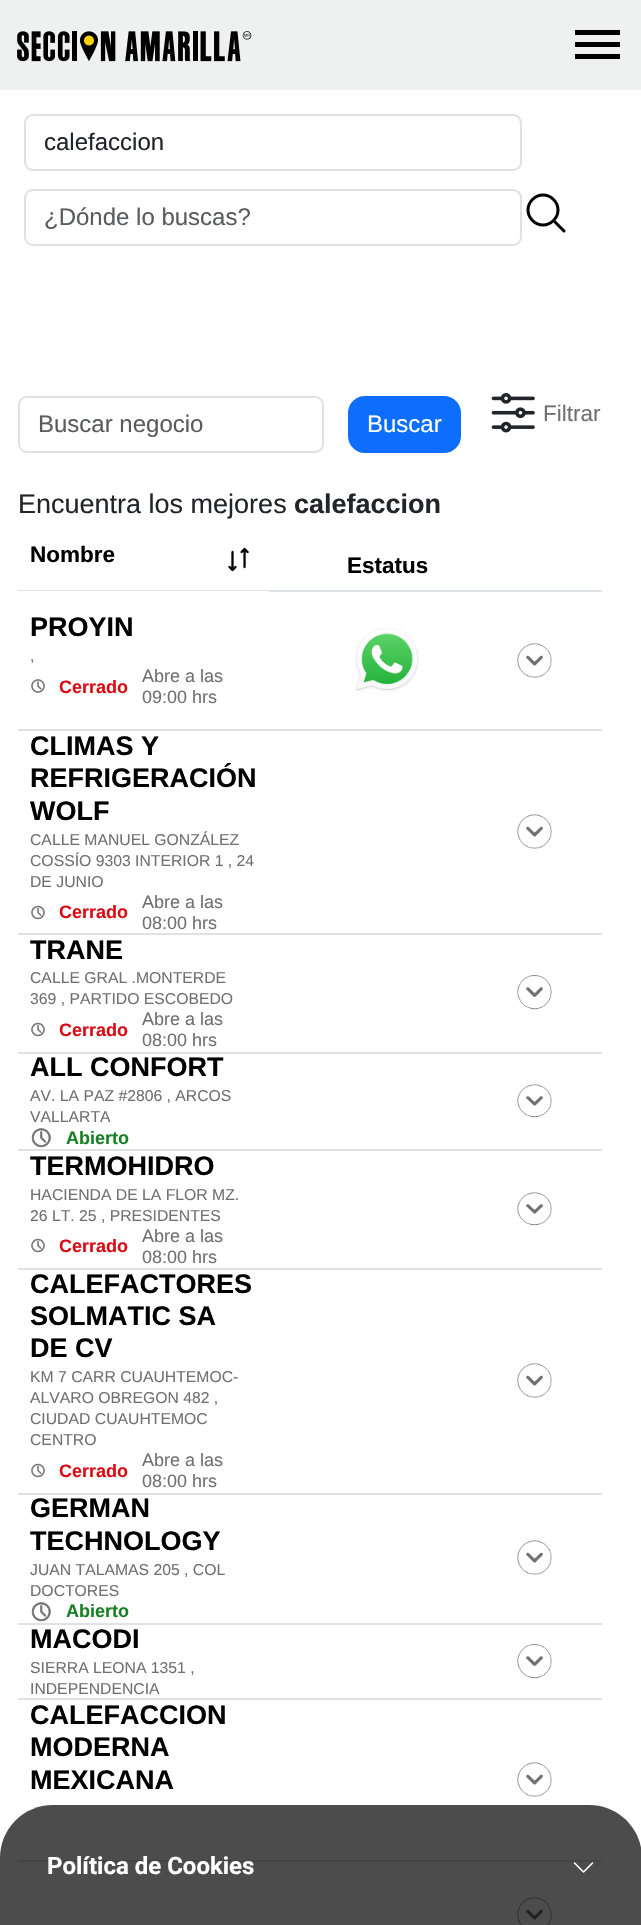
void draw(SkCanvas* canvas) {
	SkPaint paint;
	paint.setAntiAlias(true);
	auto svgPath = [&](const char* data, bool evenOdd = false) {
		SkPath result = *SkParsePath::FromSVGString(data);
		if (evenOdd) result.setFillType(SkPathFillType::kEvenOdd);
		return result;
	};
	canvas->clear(0xffffffff);
	paint.setColor(0xffeff1f0);
	canvas->drawRect(SkRect::MakeXYWH(0, 0, 641, 90), paint);
	canvas->drawImageRect(SkImages::DeferredFromEncodedData(SkData::MakeFromFileName("img1.png")), SkRect::MakeXYWH(17, 31, 235, 31), SkSamplingOptions());
	paint.setColor(0xff000000);
	canvas->drawRect(SkRect::MakeXYWH(575, 30, 45, 5), paint);
	canvas->drawRect(SkRect::MakeXYWH(575, 42, 45, 5), paint);
	canvas->drawRect(SkRect::MakeXYWH(575, 54, 45, 5), paint);
	paint.setStroke(true);
	paint.setStrokeWidth(2);
	paint.setColor(0xffdee2e6);
	canvas->drawRoundRect(SkRect::MakeXYWH(25, 115, 496, 55), 8, 8, paint);
	SkFont f1(fontMgr->matchFamilyStyle("Liberation Sans", SkFontStyle::Normal()), 24);
	f1.setSubpixel(true);
	paint.setStroke(false);
	paint.setColor(0xff212529);
	canvas->drawString("calefaccion", 44, 150, f1, paint);
	paint.setStroke(true);
	paint.setColor(0xffdee2e6);
	canvas->drawRoundRect(SkRect::MakeXYWH(25, 190, 496, 55), 8, 8, paint);
	paint.setStroke(false);
	paint.setColor(0xff595c5f);
	canvas->drawString("¿Dónde lo buscas?", 44, 225, f1, paint);
	paint.setStroke(true);
	paint.setStrokeWidth(3);
	paint.setStrokeCap(SkPaint::kRound_Cap);
	paint.setStrokeJoin(SkPaint::kRound_Join);
	paint.setColor(0xff000000);
	canvas->drawPath(svgPath("M564 231L553.5 220.5M553.5 220.5C559.5 214.5 559.5 205.5 553.5 199.5C547.5 193.5 538.5 193.5 532.5 199.5C526.5 205.5 526.5 214.5 532.5 220.5C538.5 226.5 547.5 226.5 553.5 220.5Z"), paint);
	paint.setStrokeWidth(2);
	paint.setStrokeCap(SkPaint::kButt_Cap);
	paint.setStrokeJoin(SkPaint::kMiter_Join);
	paint.setColor(0xffdee2e6);
	canvas->drawRoundRect(SkRect::MakeXYWH(19, 397, 304, 55), 8, 8, paint);
	paint.setStroke(false);
	paint.setColor(0xff595c5f);
	canvas->drawString("Buscar negocio", 38, 432, f1, paint);
	paint.setColor(0xff0d6efd);
	canvas->drawRoundRect(SkRect::MakeXYWH(349, 397, 111, 55), 16, 16, paint);
	paint.setStroke(true);
	canvas->drawRoundRect(SkRect::MakeXYWH(349, 397, 111, 55), 16, 16, paint);
	paint.setStroke(false);
	paint.setColor(0xffffffff);
	canvas->drawString("Buscar", 367, 432, f1, paint);
	canvas->drawImageRect(SkImages::DeferredFromEncodedData(SkData::MakeFromFileName("img2.png")), SkRect::MakeXYWH(491, 393, 44, 40), SkSamplingOptions());
	SkFont f2(fontMgr->matchFamilyStyle("Liberation Sans", SkFontStyle::Normal()), 22.5);
	f2.setSubpixel(true);
	paint.setColor(0xff707070);
	canvas->drawString("Filtrar", 543, 421, f2, paint);
	SkFont f3(fontMgr->matchFamilyStyle("Liberation Sans", SkFontStyle::Normal()), 27);
	f3.setSubpixel(true);
	paint.setColor(0xff212529);
	canvas->drawString("Encuentra los mejores", 18, 513, f3, paint);
	SkFont f4(fontMgr->matchFamilyStyle("Liberation Sans", SkFontStyle::Bold()), 27);
	f4.setSubpixel(true);
	canvas->drawString("calefaccion", 294, 513, f4, paint);
	paint.setColor(0xffdee2e6);
	canvas->drawRect(SkRect::MakeXYWH(18, 590, 251, 1), paint);
	SkFont f5(fontMgr->matchFamilyStyle("Liberation Sans", SkFontStyle::Bold()), 22.5);
	f5.setSubpixel(true);
	paint.setColor(0xff000000);
	canvas->drawString("Nombre", 30, 562, f5, paint);
	canvas->drawImageRect(SkImages::DeferredFromEncodedData(SkData::MakeFromFileName("img3.png")), SkRect::MakeXYWH(228, 547, 21, 25), SkSamplingOptions());
	canvas->drawString("Estatus", 347, 573, f5, paint);
	paint.setColor(0xffdee2e6);
	canvas->drawRect(SkRect::MakeXYWH(269, 590, 333, 2), paint);
	paint.setColor(0xff000000);
	canvas->drawString("PROYIN", 30, 636, f4, paint);
	SkFont f6(fontMgr->matchFamilyStyle("Liberation Sans", SkFontStyle::Normal()), 15.75);
	f6.setSubpixel(true);
	paint.setColor(0xff707070);
	canvas->drawString(",", 30, 661, f6, paint);
	canvas->drawImageRect(SkImages::DeferredFromEncodedData(SkData::MakeFromFileName("img4.png")), SkRect::MakeXYWH(31, 679, 14, 14), SkSamplingOptions());
	SkFont f7(fontMgr->matchFamilyStyle("Liberation Sans", SkFontStyle::Bold()), 18);
	f7.setSubpixel(true);
	paint.setColor(0xffd90c15);
	canvas->drawString("Cerrado", 59, 693, f7, paint);
	SkFont f8(fontMgr->matchFamilyStyle("Liberation Sans", SkFontStyle::Normal()), 18);
	f8.setSubpixel(true);
	paint.setColor(0xff707070);
	canvas->drawString("Abre a las", 142, 682, f8, paint);
	canvas->drawString("09:00 hrs", 142, 703, f8, paint);
	canvas->drawImageRect(SkImages::DeferredFromEncodedData(SkData::MakeFromFileName("img5.png")), SkRect::MakeXYWH(355, 628, 64, 64), SkSamplingOptions());
	paint.setColor(0xffdee2e6);
	canvas->drawRect(SkRect::MakeXYWH(18, 729, 584, 2), paint);
	canvas->drawImageRect(SkImages::DeferredFromEncodedData(SkData::MakeFromFileName("img6.png")), SkRect::MakeXYWH(517, 643, 35, 35), SkSamplingOptions());
	paint.setColor(0xff000000);
	canvas->drawString("CLIMAS Y", 30, 755, f4, paint);
	canvas->drawString("REFRIGERACIÓN", 30, 787, f4, paint);
	canvas->drawString("WOLF", 30, 820, f4, paint);
	paint.setColor(0xff707070);
	canvas->drawString("CALLE MANUEL GONZÁLEZ", 30, 845, f6, paint);
	canvas->drawString("COSSÍO 9303 INTERIOR 1 , 24", 30, 866, f6, paint);
	canvas->drawString("DE JUNIO", 30, 887, f6, paint);
	canvas->drawImageRect(SkImages::DeferredFromEncodedData(SkData::MakeFromFileName("img7.png")), SkRect::MakeXYWH(31, 905, 14, 15), SkSamplingOptions());
	paint.setColor(0xffd90c15);
	canvas->drawString("Cerrado", 59, 918, f7, paint);
	paint.setColor(0xff707070);
	canvas->drawString("Abre a las", 142, 908, f8, paint);
	canvas->drawString("08:00 hrs", 142, 929, f8, paint);
	paint.setColor(0xffdee2e6);
	canvas->drawRect(SkRect::MakeXYWH(18, 933, 584, 2), paint);
	canvas->drawImageRect(SkImages::DeferredFromEncodedData(SkData::MakeFromFileName("img6.png")), SkRect::MakeXYWH(517, 814, 35, 35), SkSamplingOptions());
	paint.setColor(0xff000000);
	canvas->drawString("TRANE", 30, 959, f4, paint);
	paint.setColor(0xff707070);
	canvas->drawString("CALLE GRAL .MONTERDE", 30, 983, f6, paint);
	canvas->drawString("369 , PARTIDO ESCOBEDO", 30, 1004, f6, paint);
	canvas->drawImageRect(SkImages::DeferredFromEncodedData(SkData::MakeFromFileName("img7.png")), SkRect::MakeXYWH(31, 1022, 14, 15), SkSamplingOptions());
	paint.setColor(0xffd90c15);
	canvas->drawString("Cerrado", 59, 1036, f7, paint);
	paint.setColor(0xff707070);
	canvas->drawString("Abre a las", 142, 1025, f8, paint);
	canvas->drawString("08:00 hrs", 142, 1046, f8, paint);
	paint.setColor(0xffdee2e6);
	canvas->drawRect(SkRect::MakeXYWH(18, 1052, 584, 2), paint);
	canvas->drawImageRect(SkImages::DeferredFromEncodedData(SkData::MakeFromFileName("img8.png")), SkRect::MakeXYWH(517, 975, 35, 35), SkSamplingOptions());
	paint.setColor(0xff000000);
	canvas->drawString("ALL CONFORT", 30, 1076, f4, paint);
	paint.setColor(0xff707070);
	canvas->drawString("AV. LA PAZ #2806 , ARCOS", 30, 1101, f6, paint);
	canvas->drawString("VALLARTA", 30, 1122, f6, paint);
	canvas->drawImageRect(SkImages::DeferredFromEncodedData(SkData::MakeFromFileName("img9.png")), SkRect::MakeXYWH(31, 1128, 20, 20), SkSamplingOptions());
	paint.setColor(0xff168022);
	canvas->drawString("Abierto", 66, 1144, f7, paint);
	paint.setColor(0xffdee2e6);
	canvas->drawRect(SkRect::MakeXYWH(18, 1149, 584, 2), paint);
	canvas->drawImageRect(SkImages::DeferredFromEncodedData(SkData::MakeFromFileName("img10.png")), SkRect::MakeXYWH(517, 1084, 35, 34), SkSamplingOptions());
	paint.setColor(0xff000000);
	canvas->drawString("TERMOHIDRO", 30, 1175, f4, paint);
	paint.setColor(0xff707070);
	canvas->drawString("HACIENDA DE LA FLOR MZ.", 30, 1200, f6, paint);
	canvas->drawString("26 LT. 25 , PRESIDENTES", 30, 1221, f6, paint);
	canvas->drawImageRect(SkImages::DeferredFromEncodedData(SkData::MakeFromFileName("img7.png")), SkRect::MakeXYWH(31, 1238, 14, 15), SkSamplingOptions());
	paint.setColor(0xffd90c15);
	canvas->drawString("Cerrado", 59, 1252, f7, paint);
	paint.setColor(0xff707070);
	canvas->drawString("Abre a las", 142, 1242, f8, paint);
	canvas->drawString("08:00 hrs", 142, 1263, f8, paint);
	paint.setColor(0xffdee2e6);
	canvas->drawRect(SkRect::MakeXYWH(18, 1268, 584, 2), paint);
	canvas->drawImageRect(SkImages::DeferredFromEncodedData(SkData::MakeFromFileName("img10.png")), SkRect::MakeXYWH(517, 1192, 35, 34), SkSamplingOptions());
	paint.setColor(0xff000000);
	canvas->drawString("CALEFACTORES", 30, 1293, f4, paint);
	canvas->drawString("SOLMATIC SA", 30, 1325, f4, paint);
	canvas->drawString("DE CV", 30, 1357, f4, paint);
	paint.setColor(0xff707070);
	canvas->drawString("KM 7 CARR CUAUHTEMOC-", 30, 1382, f6, paint);
	canvas->drawString("ALVARO OBREGON 482 ,", 30, 1403, f6, paint);
	canvas->drawString("CIUDAD CUAUHTEMOC", 30, 1424, f6, paint);
	canvas->drawString("CENTRO", 30, 1445, f6, paint);
	canvas->drawImageRect(SkImages::DeferredFromEncodedData(SkData::MakeFromFileName("img7.png")), SkRect::MakeXYWH(31, 1463, 14, 15), SkSamplingOptions());
	paint.setColor(0xffd90c15);
	canvas->drawString("Cerrado", 59, 1477, f7, paint);
	paint.setColor(0xff707070);
	canvas->drawString("Abre a las", 142, 1466, f8, paint);
	canvas->drawString("08:00 hrs", 142, 1487, f8, paint);
	paint.setColor(0xffdee2e6);
	canvas->drawRect(SkRect::MakeXYWH(18, 1493, 584, 2), paint);
	canvas->drawImageRect(SkImages::DeferredFromEncodedData(SkData::MakeFromFileName("img6.png")), SkRect::MakeXYWH(517, 1363, 35, 35), SkSamplingOptions());
	paint.setColor(0xff000000);
	canvas->drawString("GERMAN", 30, 1517, f4, paint);
	canvas->drawString("TECHNOLOGY", 30, 1550, f4, paint);
	paint.setColor(0xff707070);
	canvas->drawString("JUAN TALAMAS 205 , COL", 30, 1575, f6, paint);
	canvas->drawString("DOCTORES", 30, 1596, f6, paint);
	canvas->drawImageRect(SkImages::DeferredFromEncodedData(SkData::MakeFromFileName("img9.png")), SkRect::MakeXYWH(31, 1602, 20, 20), SkSamplingOptions());
	paint.setColor(0xff168022);
	canvas->drawString("Abierto", 66, 1617, f7, paint);
	paint.setColor(0xffdee2e6);
	canvas->drawRect(SkRect::MakeXYWH(18, 1623, 584, 2), paint);
	canvas->drawImageRect(SkImages::DeferredFromEncodedData(SkData::MakeFromFileName("img6.png")), SkRect::MakeXYWH(517, 1540, 35, 35), SkSamplingOptions());
	paint.setColor(0xff000000);
	canvas->drawString("MACODI", 30, 1648, f4, paint);
	paint.setColor(0xff707070);
	canvas->drawString("SIERRA LEONA 1351 ,", 30, 1673, f6, paint);
	canvas->drawString("INDEPENDENCIA", 30, 1694, f6, paint);
	paint.setColor(0xffdee2e6);
	canvas->drawRect(SkRect::MakeXYWH(18, 1698, 584, 2), paint);
	canvas->drawImageRect(SkImages::DeferredFromEncodedData(SkData::MakeFromFileName("img8.png")), SkRect::MakeXYWH(517, 1644, 35, 35), SkSamplingOptions());
	paint.setColor(0xff000000);
	canvas->drawString("CALEFACCION", 30, 1724, f4, paint);
	canvas->drawString("MODERNA", 30, 1756, f4, paint);
	canvas->drawString("MEXICANA", 30, 1789, f4, paint);
	paint.setColor(0xffdee2e6);
	canvas->drawRect(SkRect::MakeXYWH(18, 1860, 584, 2), paint);
	canvas->drawImageRect(SkImages::DeferredFromEncodedData(SkData::MakeFromFileName("img6.png")), SkRect::MakeXYWH(517, 1762, 35, 35), SkSamplingOptions());
	canvas->drawImageRect(SkImages::DeferredFromEncodedData(SkData::MakeFromFileName("img11.png")), SkRect::MakeXYWH(517, 1897, 35, 28), SkSamplingOptions());
	paint.setColor(0xb3000000);
	canvas->drawPath(svgPath("M53 1805H589C618.5 1805 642 1828.5 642 1858V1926H0V1858C0 1828.5 23.5 1805 53 1805Z"), paint);
	SkFont f9(fontMgr->matchFamilyStyle("Roboto", SkFontStyle::Bold()), 24);
	f9.setSubpixel(true);
	paint.setColor(0xffffffff);
	canvas->drawString("Política de Cookies", 47, 1874, f9, paint);
	canvas->drawImageRect(SkImages::DeferredFromEncodedData(SkData::MakeFromFileName("img12.png")), SkRect::MakeXYWH(573, 1862, 21, 11), SkSamplingOptions());
}
